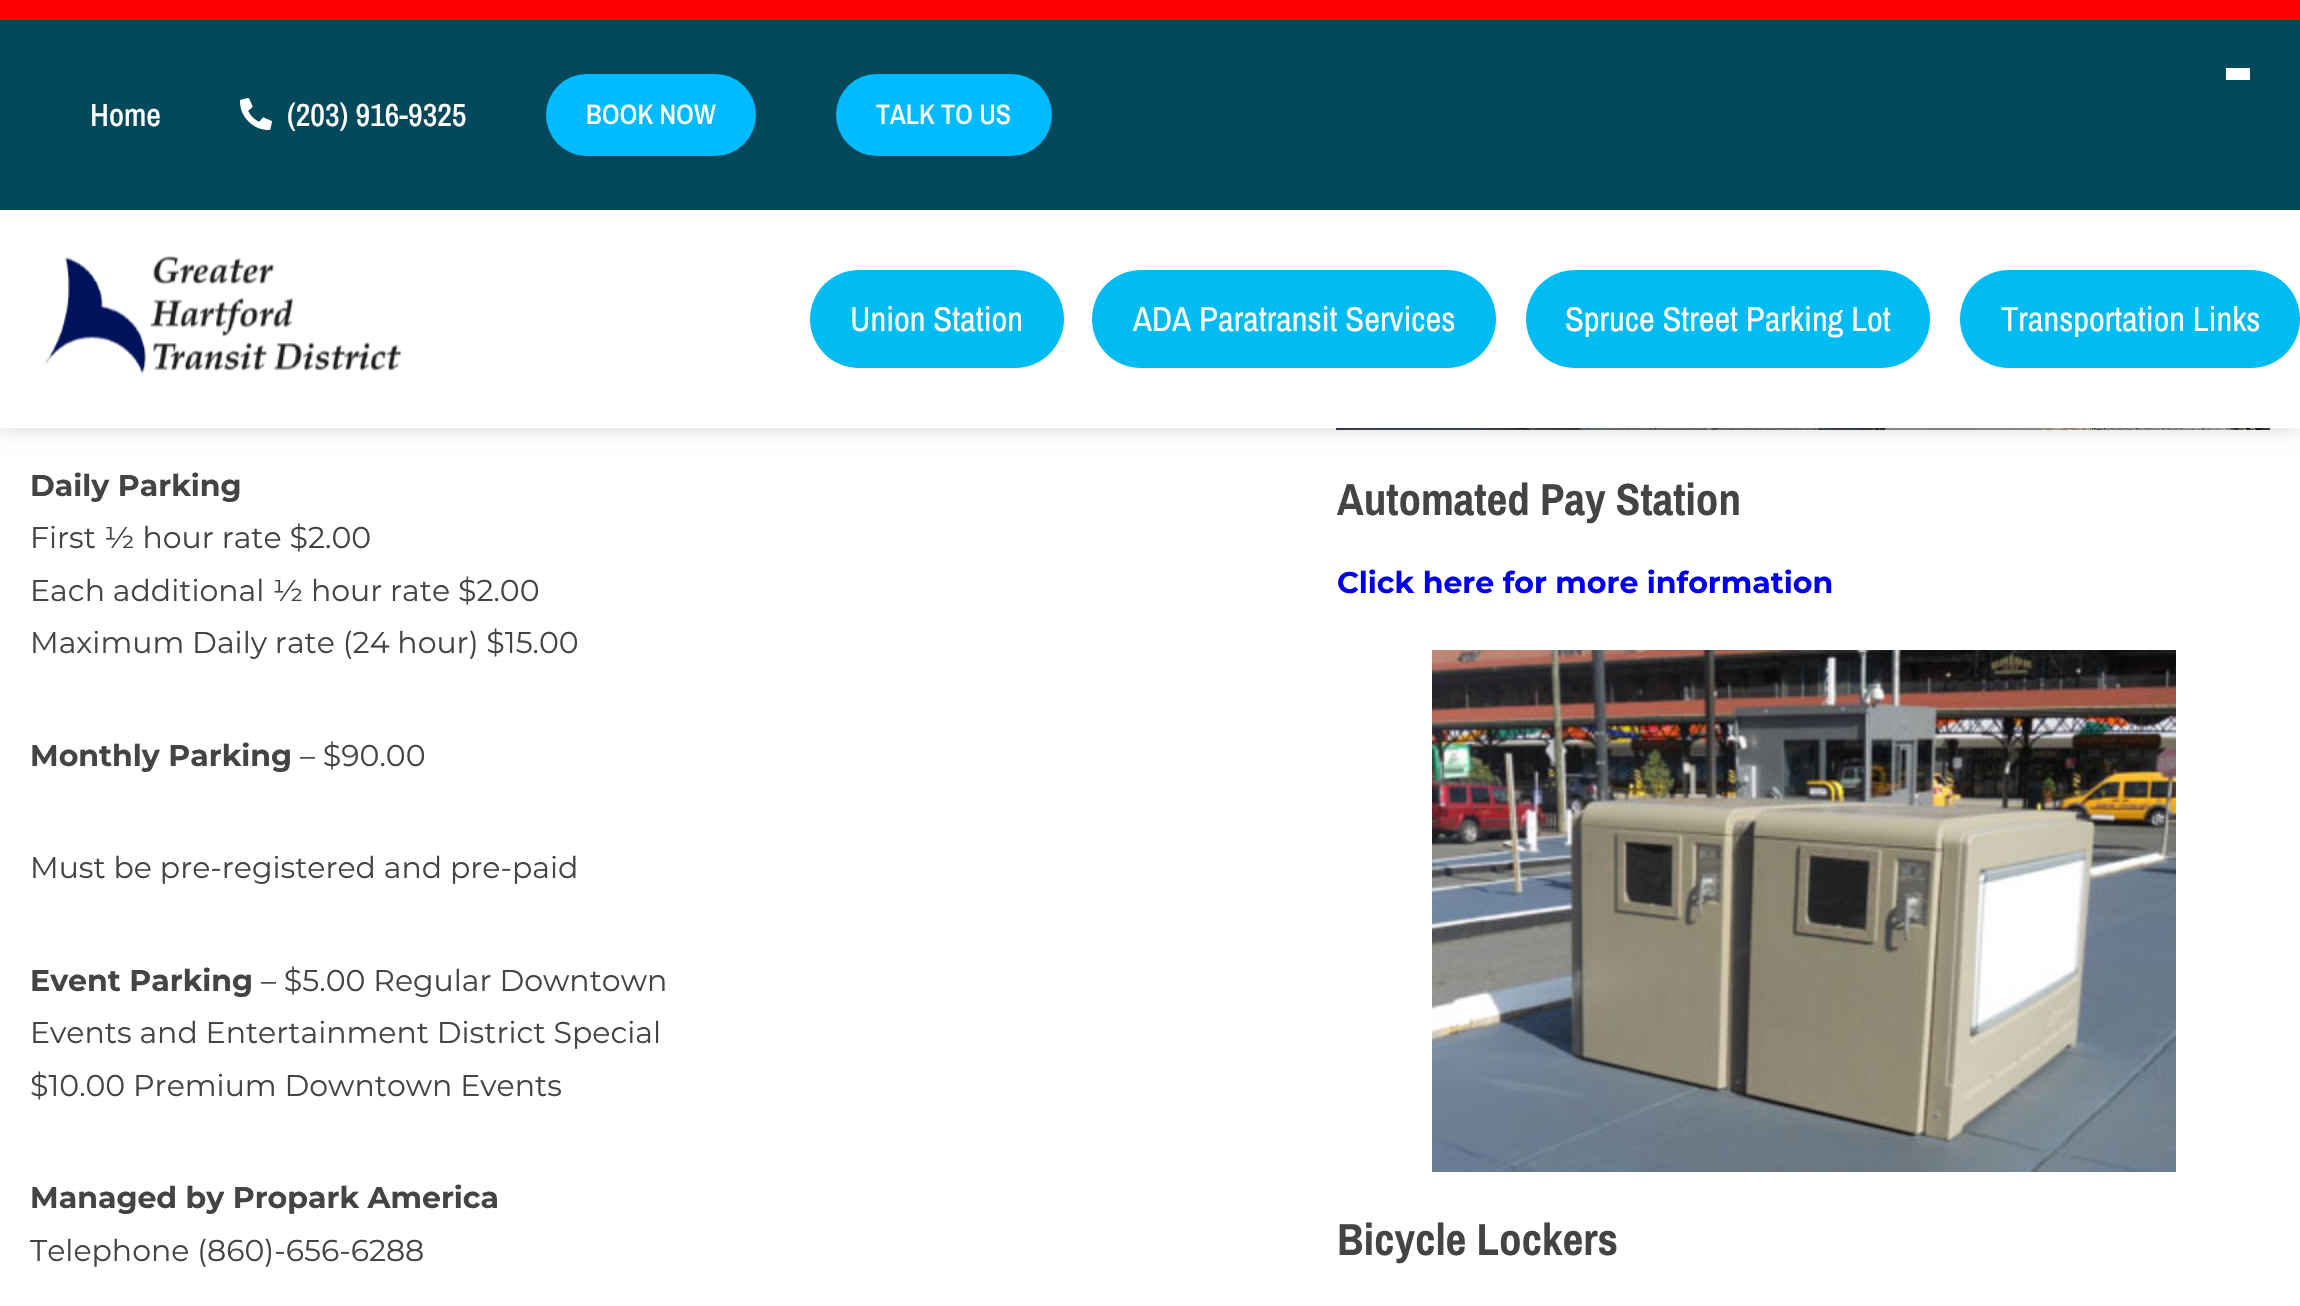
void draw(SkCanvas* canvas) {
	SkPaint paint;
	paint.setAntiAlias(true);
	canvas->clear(0xffffffff);
	canvas->drawImageRect(SkImages::DeferredFromEncodedData(SkData::MakeFromFileName("img3.png")), SkRect::MakeXYWH(1336, 428, 934, 2), SkSamplingOptions());
	paint.setColor(0x2b000000);
	paint.setMaskFilter(SkMaskFilter::MakeBlur(kNormal_SkBlurStyle, 10));
	canvas->drawRect(SkRect::MakeXYWH(0, 0, 2300, 428), paint);
	paint.setMaskFilter(nullptr);
	paint.setColor(0xffffffff);
	canvas->drawRect(SkRect::MakeXYWH(0, 210, 2300, 218), paint);
	paint.setColor(0xffff0000);
	canvas->drawRect(SkRect::MakeXYWH(0, 0, 2300, 20), paint);
	paint.setColor(0xff04485b);
	canvas->drawRect(SkRect::MakeXYWH(0, 20, 2300, 190), paint);
	paint.setColor(0xffffffff);
	canvas->drawRect(SkRect::MakeXYWH(2226, 68, 24, 12), paint);
	SkFont f1(fontMgr->matchFamilyStyle("Archivo Narrow", SkFontStyle(500, SkFontStyle::kNormal_Width, SkFontStyle::kUpright_Slant)), 32);
	f1.setSubpixel(true);
	canvas->drawString("Home", 90, 126, f1, paint);
	canvas->drawImageRect(SkImages::DeferredFromEncodedData(SkData::MakeFromFileName("img1.png")), SkRect::MakeXYWH(240, 98, 32, 32), SkSamplingOptions());
	canvas->drawString("(203) 916-9325", 287, 126, f1, paint);
	paint.setColor(0xff00bbff);
	canvas->drawRoundRect(SkRect::MakeXYWH(546, 74, 210, 82), 41, 41, paint);
	SkFont f2(fontMgr->matchFamilyStyle("Archivo Narrow", SkFontStyle(500, SkFontStyle::kNormal_Width, SkFontStyle::kUpright_Slant)), 28);
	f2.setSubpixel(true);
	paint.setColor(0xffffffff);
	canvas->drawString("BOOK NOW", 586, 124, f2, paint);
	paint.setColor(0xff00bbff);
	canvas->drawRoundRect(SkRect::MakeXYWH(836, 74, 216, 82), 41, 41, paint);
	paint.setColor(0xffffffff);
	canvas->drawString("TALK TO US", 876, 124, f2, paint);
	canvas->drawImageRect(SkImages::DeferredFromEncodedData(SkData::MakeFromFileName("img2.png")), SkRect::MakeXYWH(45, 256, 356, 118), SkSamplingOptions());
	paint.setColor(0xff00bcf2);
	canvas->drawRoundRect(SkRect::MakeXYWH(810, 270, 254, 98), 49, 49, paint);
	SkFont f3(fontMgr->matchFamilyStyle("Archivo Narrow", SkFontStyle::Normal()), 34.5);
	f3.setSubpixel(true);
	paint.setColor(0xffffffff);
	canvas->drawString("Union Station", 850, 331, f3, paint);
	paint.setColor(0xff00bcf2);
	canvas->drawRoundRect(SkRect::MakeXYWH(1092, 270, 404, 98), 49, 49, paint);
	paint.setColor(0xffffffff);
	canvas->drawString("ADA Paratransit Services", 1133, 331, f3, paint);
	paint.setColor(0xff00bcf2);
	canvas->drawRoundRect(SkRect::MakeXYWH(1526, 270, 404, 98), 49, 49, paint);
	paint.setColor(0xffffffff);
	canvas->drawString("Spruce Street Parking Lot", 1565, 331, f3, paint);
	paint.setColor(0xff00bcf2);
	canvas->drawRoundRect(SkRect::MakeXYWH(1960, 270, 340, 98), 49, 49, paint);
	paint.setColor(0xffffffff);
	canvas->drawString("Transportation Links", 2001, 331, f3, paint);
	SkFont f4(fontMgr->matchFamilyStyle("Montserrat", SkFontStyle::Bold()), 30);
	f4.setSubpixel(true);
	paint.setColor(0xff444444);
	canvas->drawString("Daily Parking", 30, 496, f4, paint);
	SkFont f5(fontMgr->matchFamilyStyle("Montserrat", SkFontStyle::Normal()), 30);
	f5.setSubpixel(true);
	canvas->drawString("First ½ hour rate $2.00", 30, 548, f5, paint);
	canvas->drawString("Each additional ½ hour rate $2.00", 30, 601, f5, paint);
	canvas->drawString("Maximum Daily rate (24 hour) $15.00", 30, 653, f5, paint);
	canvas->drawString("Monthly Parking", 30, 766, f4, paint);
	canvas->drawString("– $90.00", 300, 766, f5, paint);
	canvas->drawString("Must be pre-registered and pre-paid", 30, 878, f5, paint);
	canvas->drawString("Event Parking", 30, 991, f4, paint);
	canvas->drawString("– $5.00 Regular Downtown", 261, 991, f5, paint);
	canvas->drawString("Events and Entertainment District Special", 30, 1043, f5, paint);
	canvas->drawString("$10.00 Premium Downtown Events", 30, 1096, f5, paint);
	canvas->drawString("Managed by Propark America", 30, 1208, f4, paint);
	canvas->drawString("Telephone (860)-656-6288", 30, 1261, f5, paint);
	SkFont f6(fontMgr->matchFamilyStyle("Archivo Narrow", SkFontStyle::Bold()), 45);
	f6.setSubpixel(true);
	canvas->drawString("Automated Pay Station", 1337, 515, f6, paint);
	paint.setColor(0xff0000ee);
	canvas->drawString("Click here for more information", 1337, 593, f4, paint);
	canvas->drawImageRect(SkImages::DeferredFromEncodedData(SkData::MakeFromFileName("img4.png")), SkRect::MakeXYWH(1432, 650, 744, 522), SkSamplingOptions());
	paint.setColor(0xff444444);
	canvas->drawString("Bicycle Lockers", 1337, 1255, f6, paint);
}
